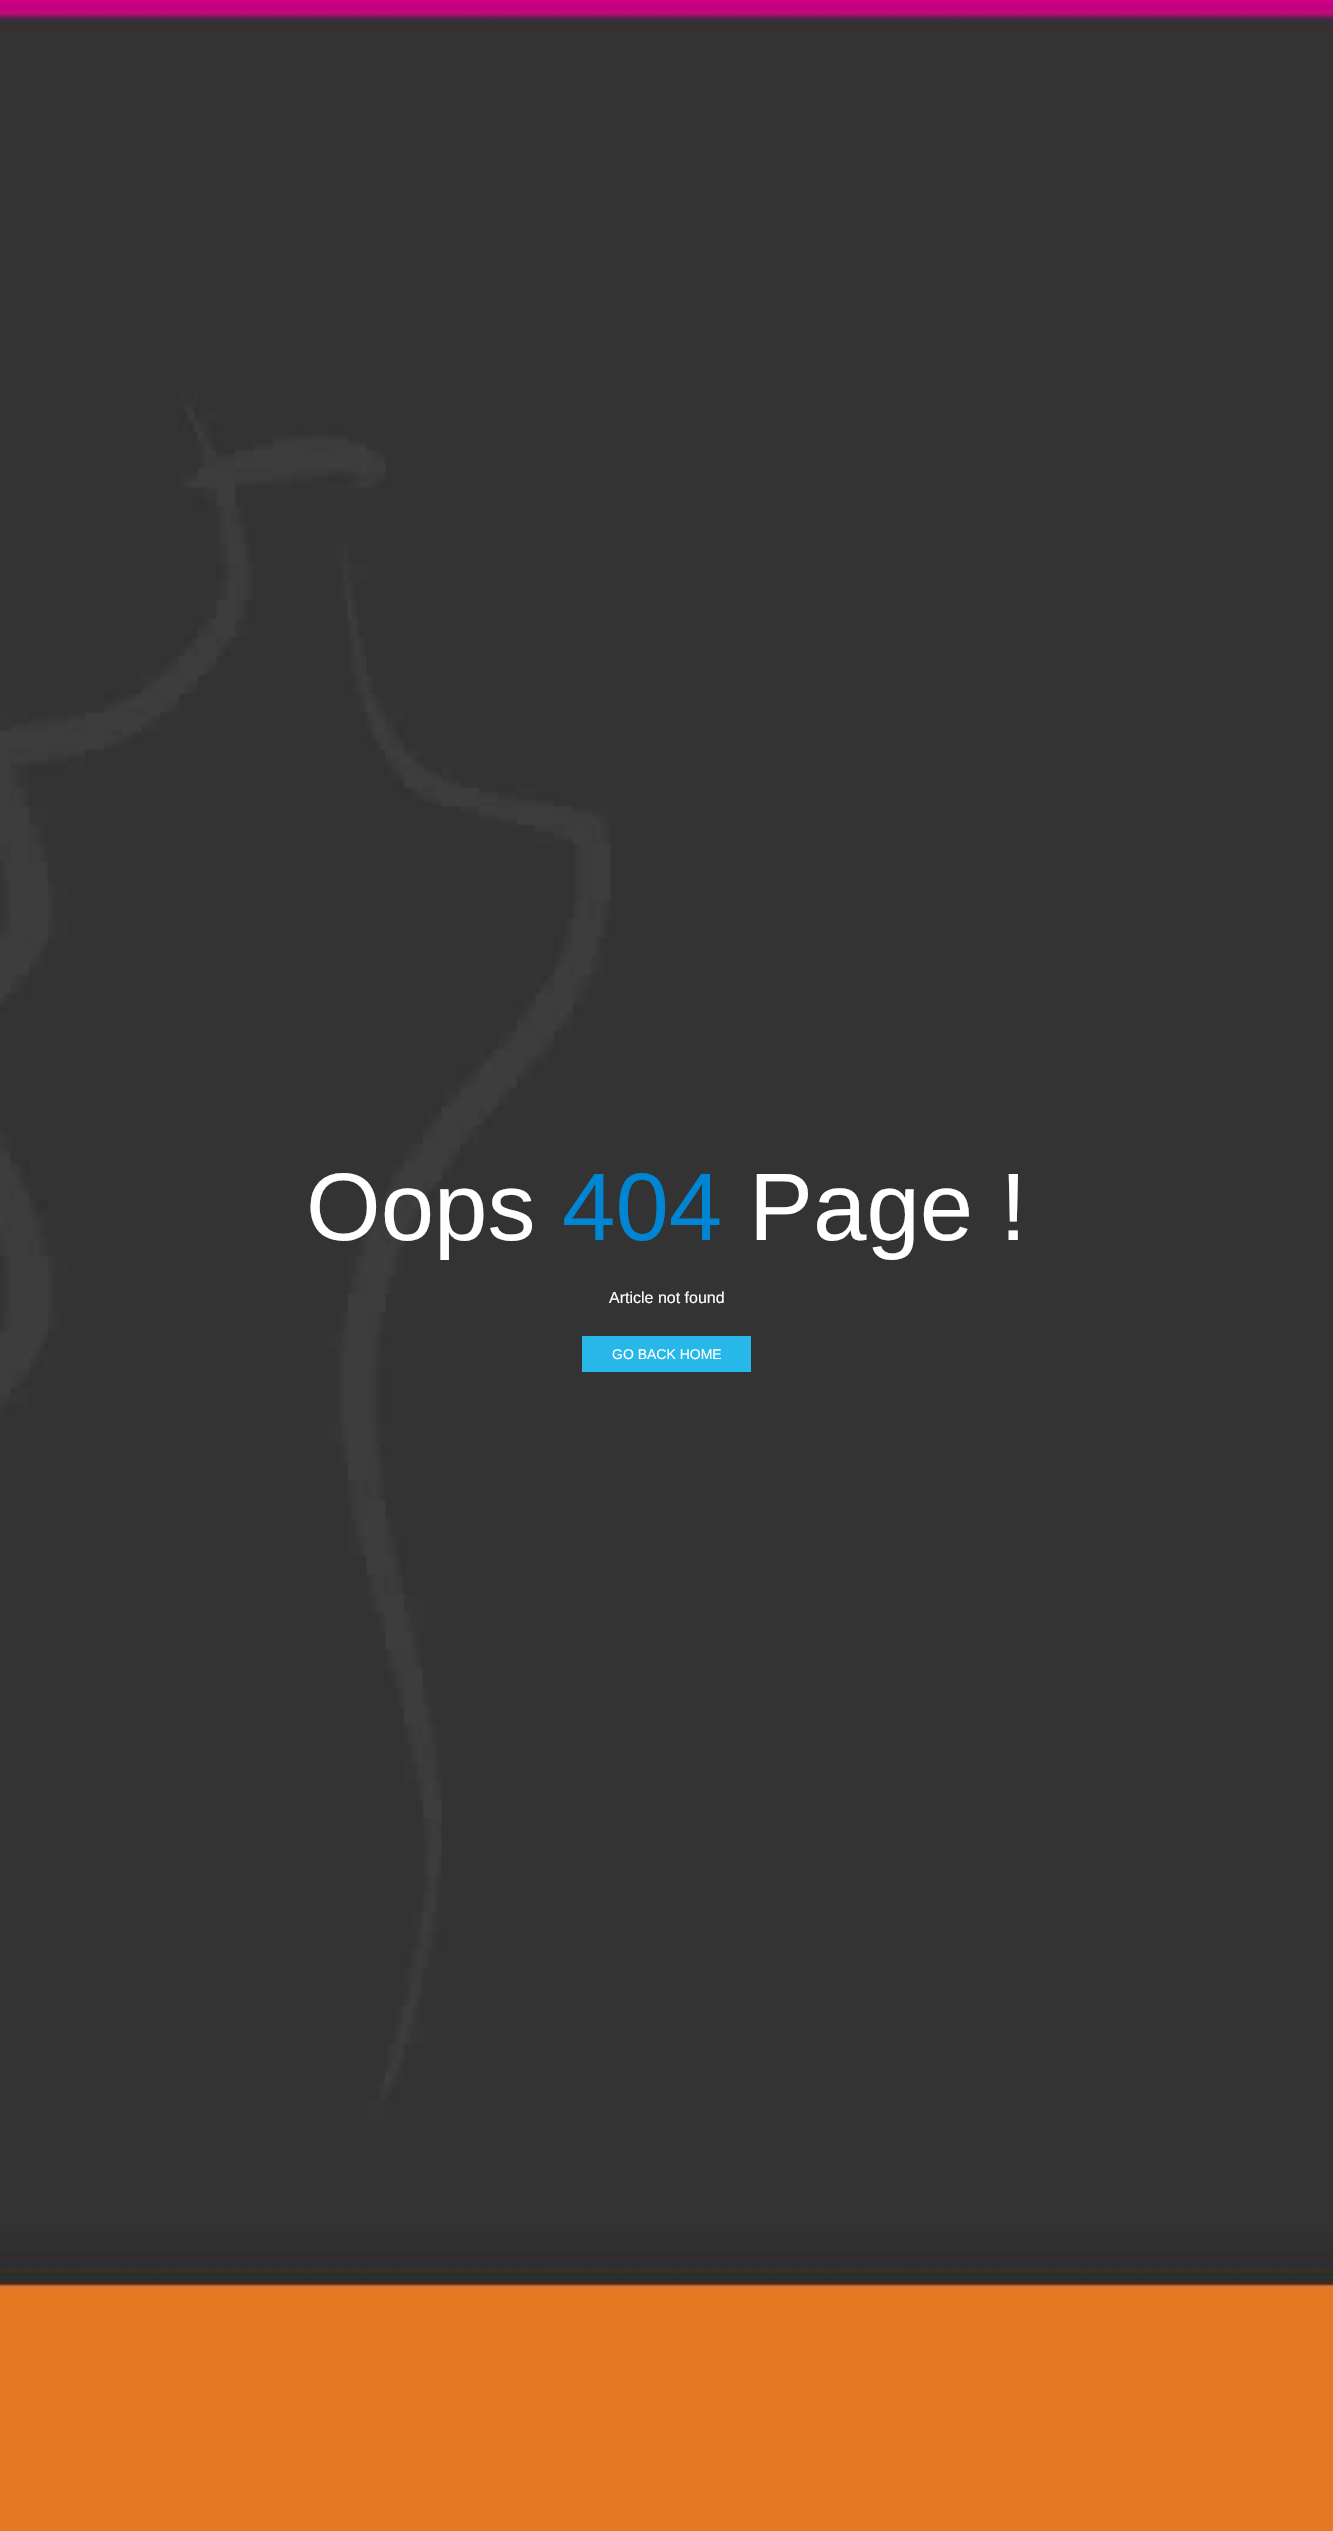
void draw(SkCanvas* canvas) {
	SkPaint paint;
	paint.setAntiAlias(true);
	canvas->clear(0xffffffff);
	canvas->drawImageRect(SkImages::DeferredFromEncodedData(SkData::MakeFromFileName("img1.png")), SkRect::MakeXYWH(0, 0, 1333, 2531), SkSamplingOptions());
	SkFont f1(fontMgr->matchFamilyStyle("Liberation Sans", SkFontStyle::Normal()), 96);
	f1.setSubpixel(true);
	paint.setColor(0xffffffff);
	canvas->drawString("Oops", 306, 1240, f1, paint);
	paint.setColor(0xff0085d3);
	canvas->drawString("404", 562, 1240, f1, paint);
	paint.setColor(0xffffffff);
	canvas->drawString("Page !", 749, 1240, f1, paint);
	SkFont f2(fontMgr->matchFamilyStyle("Liberation Sans", SkFontStyle::Normal()), 16);
	f2.setSubpixel(true);
	canvas->drawString("Article not found", 609, 1303, f2, paint);
	paint.setColor(0xff28b7e9);
	canvas->drawRect(SkRect::MakeXYWH(582, 1336, 169, 36), paint);
	SkFont f3(fontMgr->matchFamilyStyle("Liberation Sans", SkFontStyle::Normal()), 14);
	f3.setSubpixel(true);
	paint.setColor(0xffffffff);
	canvas->drawString("GO BACK HOME", 612, 1359, f3, paint);
}
